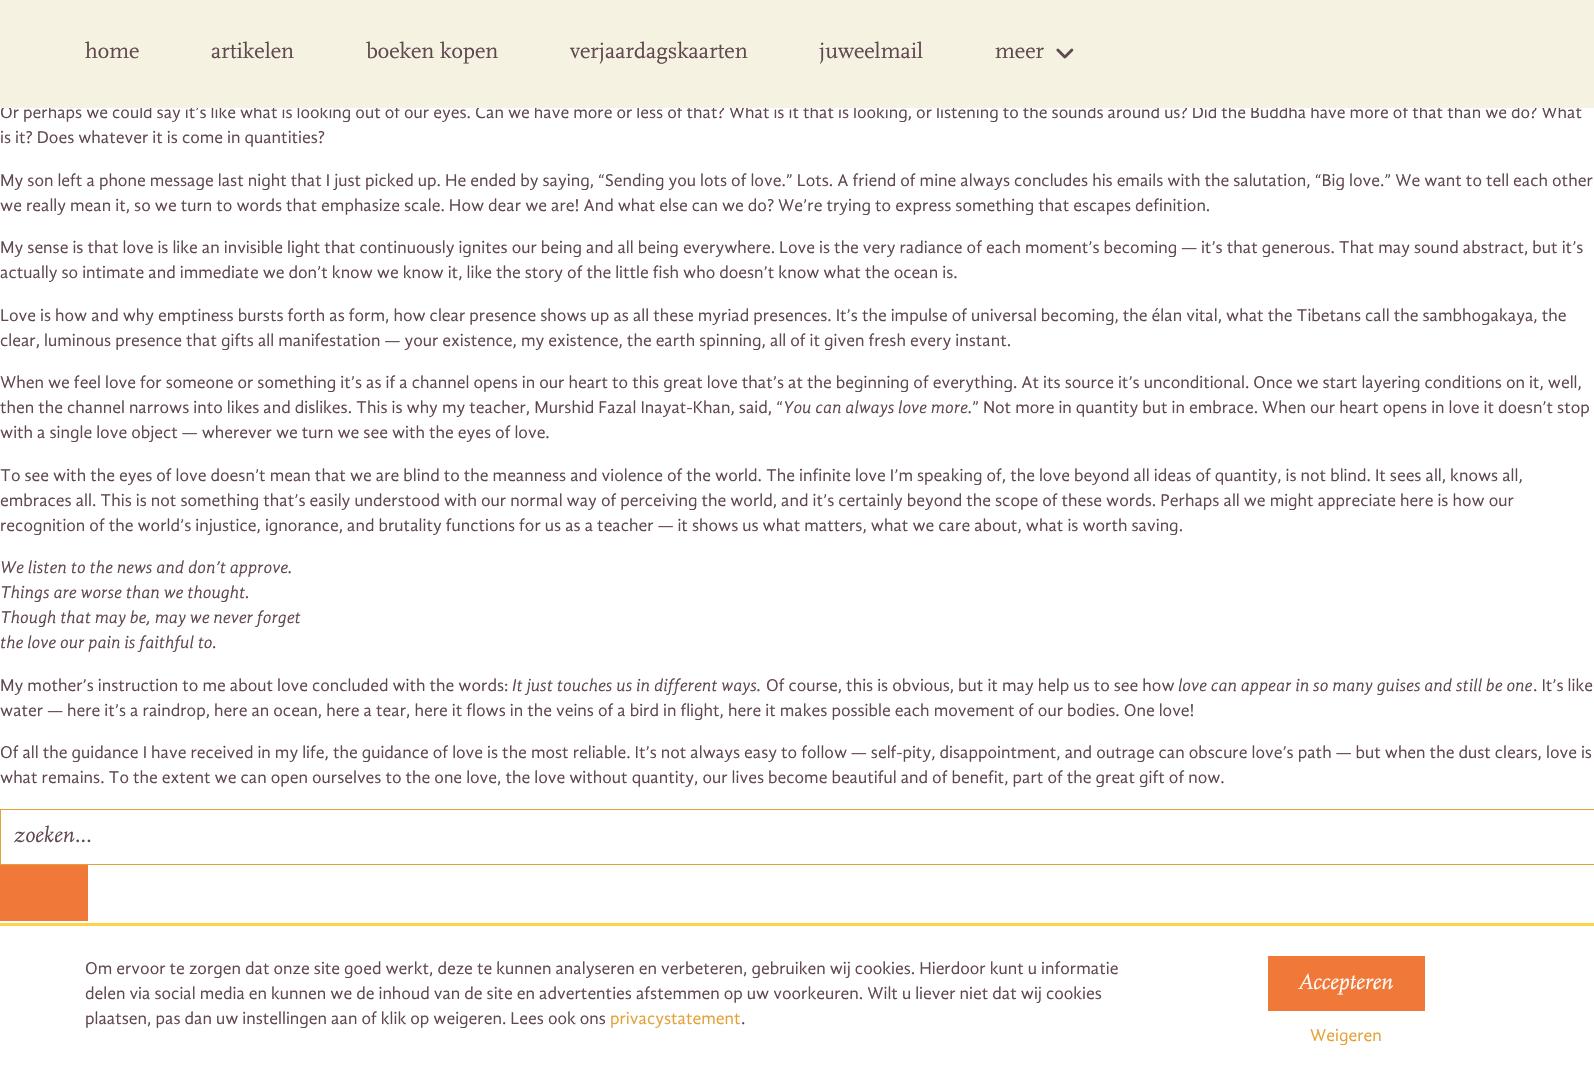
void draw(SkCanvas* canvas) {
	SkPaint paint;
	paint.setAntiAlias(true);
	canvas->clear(0xffffffff);
	SkFont f1(fontMgr->matchFamilyStyle("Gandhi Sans", SkFontStyle::Normal()), 17.5);
	f1.setSubpixel(true);
	paint.setColor(0xff60484f);
	canvas->drawString("Or perhaps we could say it’s like what is looking out of our eyes. Can we have more or less of that? What is it that is looking, or listening to the sounds around us? Did the Buddha have more of that than we do? What", 0, 118, f1, paint);
	paint.setColor(0xfff6f2e2);
	canvas->drawRect(SkRect::MakeXYWH(0, 0, 1594, 108), paint);
	SkFont f2(fontMgr->matchFamilyStyle("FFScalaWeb", SkFontStyle::Normal()), 22.5);
	f2.setSubpixel(true);
	paint.setColor(0xff60484f);
	canvas->drawString("home", 85, 58, f2, paint);
	canvas->drawString("artikelen", 211, 58, f2, paint);
	canvas->drawString("boeken kopen", 366, 58, f2, paint);
	canvas->drawString("verjaardagskaarten", 570, 58, f2, paint);
	canvas->drawString("juweelmail", 819, 58, f2, paint);
	canvas->drawString("meer", 995, 58, f2, paint);
	canvas->drawImageRect(SkImages::DeferredFromEncodedData(SkData::MakeFromFileName("img1.png")), SkRect::MakeXYWH(1056, 48, 18, 11), SkSamplingOptions());
	canvas->drawString("is it? Does whatever it is come in quantities?", 0, 143, f1, paint);
	canvas->drawString("My son left a phone message last night that I just picked up. He ended by saying, “Sending you lots of love.” Lots. A friend of mine always concludes his emails with the salutation, “Big love.” We want to tell each other", 0, 186, f1, paint);
	canvas->drawString("we really mean it, so we turn to words that emphasize scale. How dear we are! And what else can we do? We’re trying to express something that escapes definition.", 0, 211, f1, paint);
	canvas->drawString("My sense is that love is like an invisible light that continuously ignites our being and all being everywhere. Love is the very radiance of each moment’s becoming — it’s that generous. That may sound abstract, but it’s", 0, 253, f1, paint);
	canvas->drawString("actually so intimate and immediate we don’t know we know it, like the story of the little fish who doesn’t know what the ocean is.", 0, 278, f1, paint);
	canvas->drawString("Love is how and why emptiness bursts forth as form, how clear presence shows up as all these myriad presences. It’s the impulse of universal becoming, the élan vital, what the Tibetans call the sambhogakaya, the", 0, 321, f1, paint);
	canvas->drawString("clear, luminous presence that gifts all manifestation — your existence, my existence, the earth spinning, all of it given fresh every instant.", 0, 346, f1, paint);
	canvas->drawString("When we feel love for someone or something it’s as if a channel opens in our heart to this great love that’s at the beginning of everything. At its source it’s unconditional. Once we start layering conditions on it, well,", 0, 388, f1, paint);
	canvas->drawString("then the channel narrows into likes and dislikes. This is why my teacher, Murshid Fazal Inayat-Khan, said, “", 0, 413, f1, paint);
	SkFont f3(fontMgr->matchFamilyStyle("Gandhi Sans", SkFontStyle::Italic()), 17.5);
	f3.setSubpixel(true);
	canvas->drawString("You can always love more.", 783, 413, f3, paint);
	canvas->drawString("” Not more in quantity but in embrace. When our heart opens in love it doesn’t stop", 972, 413, f1, paint);
	canvas->drawString("with a single love object — wherever we turn we see with the eyes of love.", 0, 438, f1, paint);
	canvas->drawString("To see with the eyes of love doesn’t mean that we are blind to the meanness and violence of the world. The infinite love I’m speaking of, the love beyond all ideas of quantity, is not blind. It sees all, knows all,", 0, 481, f1, paint);
	canvas->drawString("embraces all. This is not something that’s easily understood with our normal way of perceiving the world, and it’s certainly beyond the scope of these words. Perhaps all we might appreciate here is how our", 0, 506, f1, paint);
	canvas->drawString("recognition of the world’s injustice, ignorance, and brutality functions for us as a teacher — it shows us what matters, what we care about, what is worth saving.", 0, 531, f1, paint);
	canvas->drawString("We listen to the news and don’t approve.", 0, 573, f3, paint);
	canvas->drawString("Things are worse than we thought.", 0, 598, f3, paint);
	canvas->drawString("Though that may be, may we never forget", 0, 623, f3, paint);
	canvas->drawString("the love our pain is faithful to.", 0, 648, f3, paint);
	canvas->drawString("My mother’s instruction to me about love concluded with the words:", 0, 691, f1, paint);
	canvas->drawString("It just touches us in different ways.", 512, 691, f3, paint);
	canvas->drawString("Of course, this is obvious, but it may help us to see how", 766, 691, f1, paint);
	canvas->drawString("love can appear in so many guises and still be one", 1178, 691, f3, paint);
	canvas->drawString(". It’s like", 1533, 691, f1, paint);
	canvas->drawString("water — here it’s a raindrop, here an ocean, here a tear, here it flows in the veins of a bird in flight, here it makes possible each movement of our bodies. One love!", 0, 716, f1, paint);
	canvas->drawString("Of all the guidance I have received in my life, the guidance of love is the most reliable. It’s not always easy to follow — self-pity, disappointment, and outrage can obscure love’s path — but when the dust clears, love is", 0, 758, f1, paint);
	canvas->drawString("what remains. To the extent we can open ourselves to the one love, the love without quantity, our lives become beautiful and of benefit, part of the great gift of now.", 0, 783, f1, paint);
	paint.setStroke(true);
	paint.setStrokeWidth(1);
	paint.setColor(0xffe5a137);
	canvas->drawRect(SkRect::MakeXYWH(0.5, 809.5, 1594, 55), paint);
	SkFont f4(fontMgr->matchFamilyStyle("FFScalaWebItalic", SkFontStyle::Normal()), 22.5);
	f4.setSubpixel(true);
	paint.setStroke(false);
	paint.setColor(0xff60484f);
	canvas->drawString("zoeken...", 14, 842, f4, paint);
	paint.setColor(0xfff07939);
	canvas->drawRect(SkRect::MakeXYWH(0, 865, 88, 56), paint);
	paint.setColor(0xffffd444);
	canvas->drawRect(SkRect::MakeXYWH(0, 923, 1594, 3), paint);
	paint.setColor(0xff60484f);
	canvas->drawString("Om ervoor te zorgen dat onze site goed werkt, deze te kunnen analyseren en verbeteren, gebruiken wij cookies. Hierdoor kunt u informatie", 85, 974, f1, paint);
	canvas->drawString("delen via social media en kunnen we de inhoud van de site en advertenties afstemmen op uw voorkeuren. Wilt u liever niet dat wij cookies", 85, 999, f1, paint);
	canvas->drawString("plaatsen, pas dan uw instellingen aan of klik op weigeren. Lees ook ons", 85, 1024, f1, paint);
	paint.setColor(0xffe5a137);
	canvas->drawString("privacystatement", 610, 1024, f1, paint);
	paint.setColor(0xff60484f);
	canvas->drawString(".", 741, 1024, f1, paint);
	paint.setColor(0xfff07939);
	canvas->drawRect(SkRect::MakeXYWH(1268, 956, 157, 55), paint);
	paint.setColor(0xffffffff);
	canvas->drawString("Accepteren", 1298, 989, f4, paint);
	paint.setColor(0xffe5a137);
	canvas->drawString("Weigeren", 1310, 1041, f1, paint);
}
